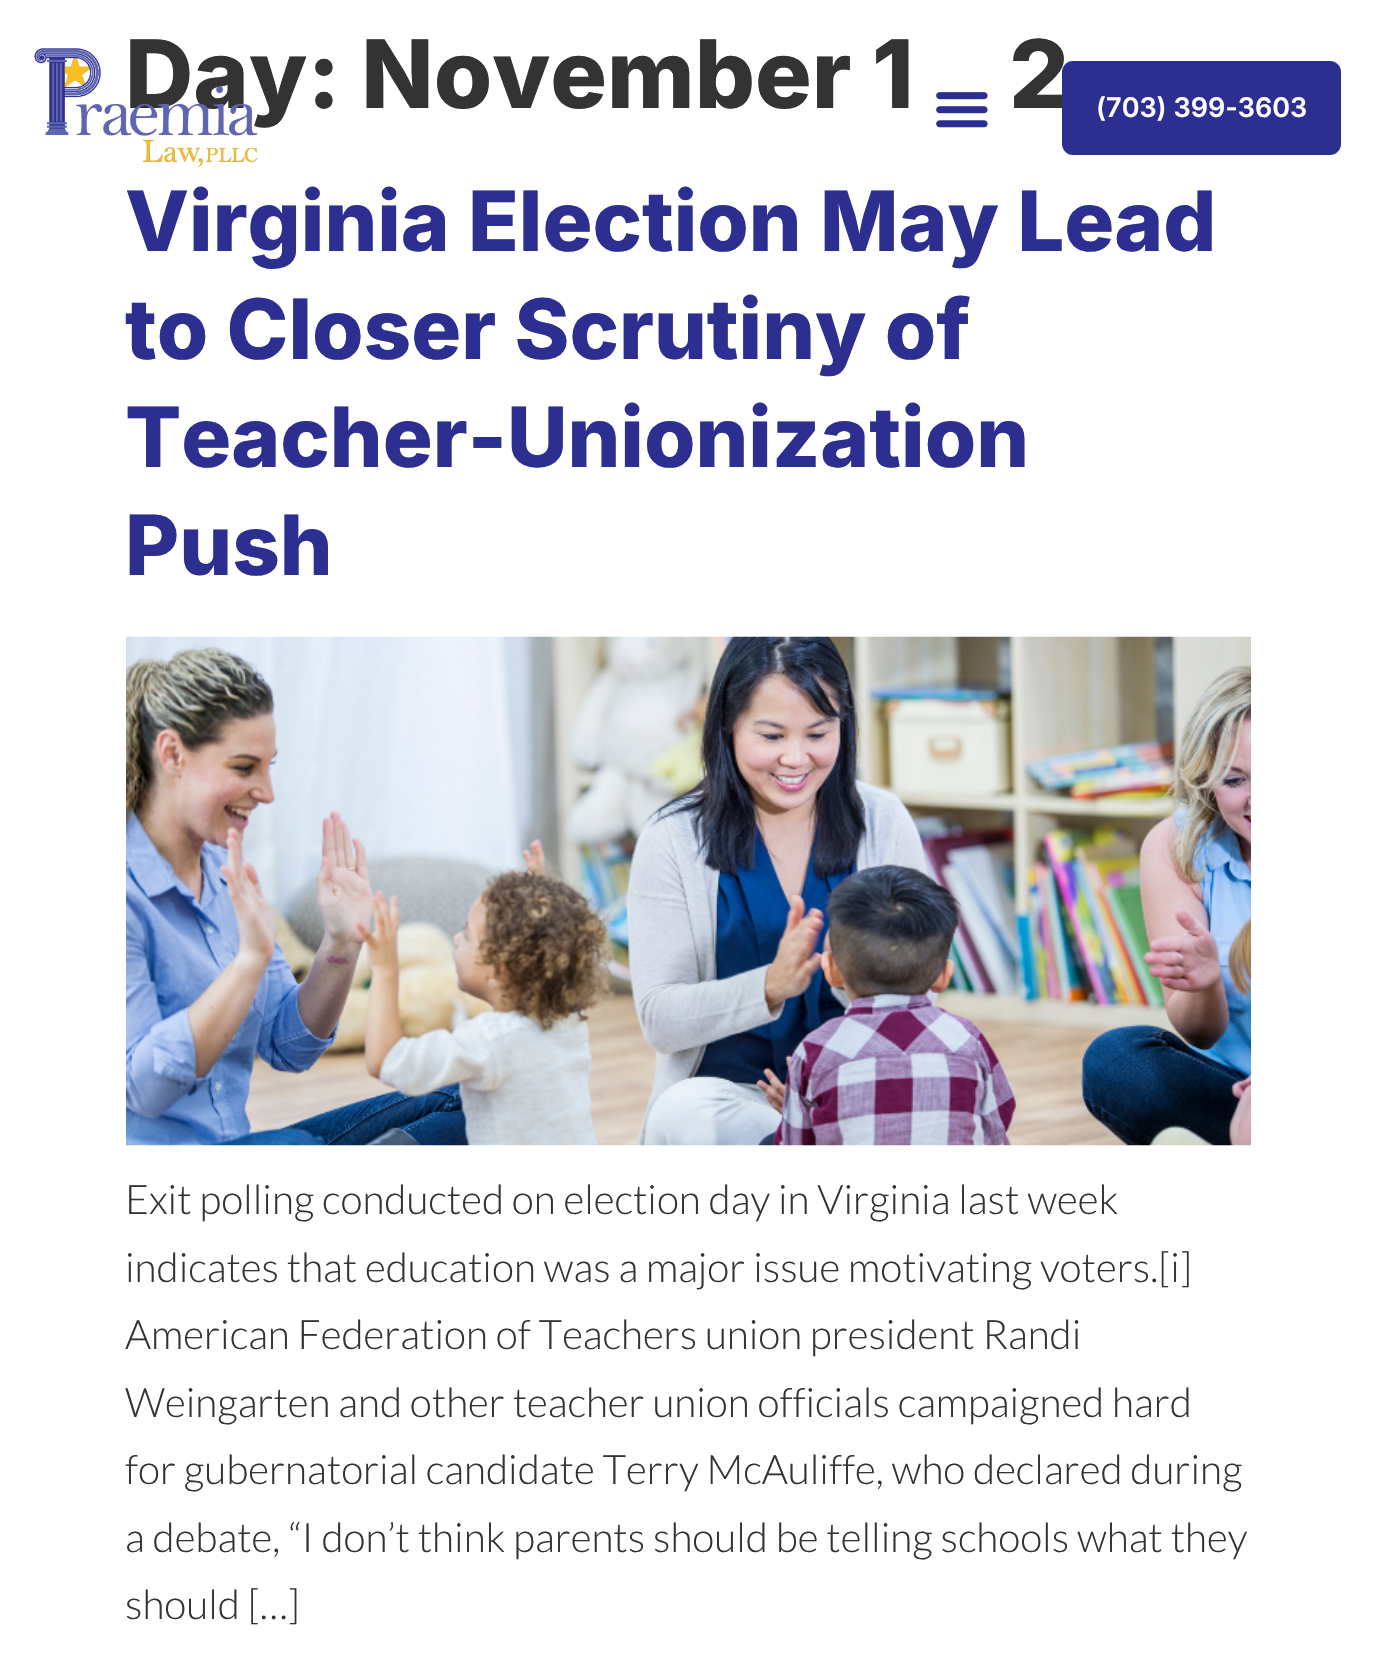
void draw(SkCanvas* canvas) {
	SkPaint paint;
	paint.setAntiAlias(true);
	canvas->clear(0xffffffff);
	SkFont f1(fontMgr->matchFamilyStyle("Inter", SkFontStyle(800, SkFontStyle::kNormal_Width, SkFontStyle::kUpright_Slant)), 94.5);
	f1.setSubpixel(true);
	paint.setColor(0xff333333);
	canvas->drawString("Day: November 1", 125, 108, f1, paint);
	canvas->drawString("2", 1009, 108, f1, paint);
	SkFont f2(fontMgr->matchFamilyStyle("Inter", SkFontStyle(800, SkFontStyle::kNormal_Width, SkFontStyle::kUpright_Slant)), 83.25);
	f2.setSubpixel(true);
	paint.setColor(0xff2c2f90);
	canvas->drawString("Virginia Election May Lead", 125, 251, f2, paint);
	canvas->drawString("to Closer Scrutiny of", 125, 359, f2, paint);
	canvas->drawString("Teacher-Unionization", 125, 467, f2, paint);
	canvas->drawString("Push", 125, 575, f2, paint);
	canvas->drawImageRect(SkImages::DeferredFromEncodedData(SkData::MakeFromFileName("img1.png")), SkRect::MakeXYWH(126, 636, 1125, 510), SkSamplingOptions());
	SkFont f3(fontMgr->matchFamilyStyle("Lato", SkFontStyle(300, SkFontStyle::kNormal_Width, SkFontStyle::kUpright_Slant)), 40.5);
	f3.setSubpixel(true);
	paint.setColor(0xff333333);
	canvas->drawString("Exit polling conducted on election day in Virginia last week", 125, 1214, f3, paint);
	canvas->drawString("indicates that education was a major issue motivating voters.[i]", 125, 1282, f3, paint);
	canvas->drawString("American Federation of Teachers union president Randi", 125, 1349, f3, paint);
	canvas->drawString("Weingarten and other teacher union officials campaigned hard", 125, 1417, f3, paint);
	canvas->drawString("for gubernatorial candidate Terry McAuliffe, who declared during", 125, 1484, f3, paint);
	canvas->drawString("a debate, “I don’t think parents should be telling schools what they", 125, 1552, f3, paint);
	canvas->drawString("should […]", 125, 1619, f3, paint);
	canvas->drawImageRect(SkImages::DeferredFromEncodedData(SkData::MakeFromFileName("img2.png")), SkRect::MakeXYWH(34, 48, 224, 119), SkSamplingOptions());
	canvas->drawImageRect(SkImages::DeferredFromEncodedData(SkData::MakeFromFileName("img3.png")), SkRect::MakeXYWH(936, 92, 52, 36), SkSamplingOptions());
	paint.setColor(0xff2c2f90);
	canvas->drawRoundRect(SkRect::MakeXYWH(1062, 61, 279, 94), 11, 11, paint);
	SkFont f4(fontMgr->matchFamilyStyle("Inter", SkFontStyle(600, SkFontStyle::kNormal_Width, SkFontStyle::kUpright_Slant)), 27);
	f4.setSubpixel(true);
	paint.setColor(0xffffffff);
	canvas->drawString("(703) 399-3603", 1096, 117, f4, paint);
}
